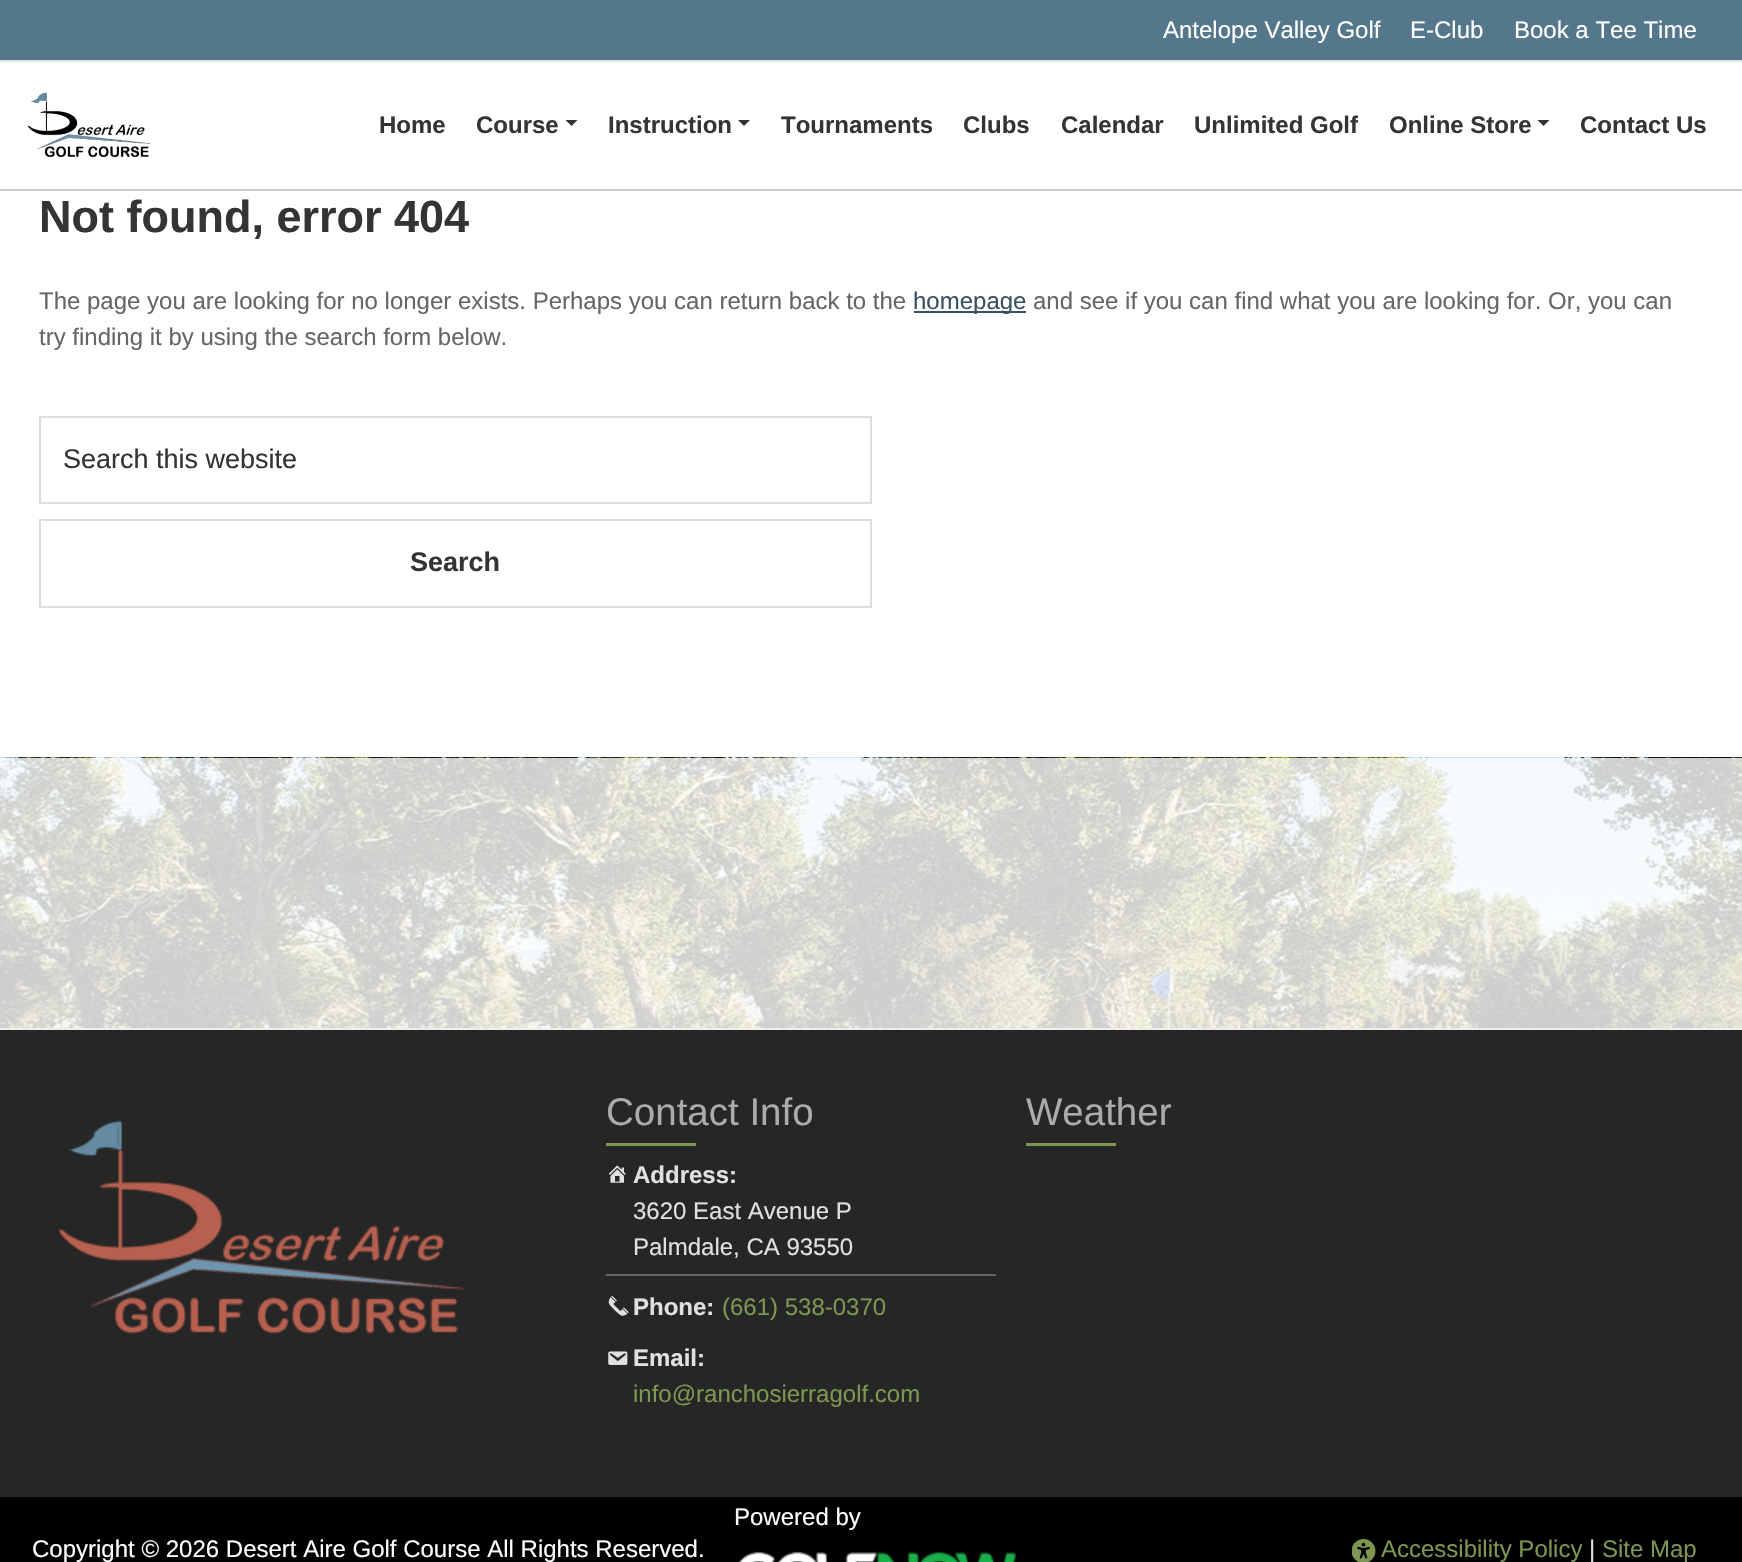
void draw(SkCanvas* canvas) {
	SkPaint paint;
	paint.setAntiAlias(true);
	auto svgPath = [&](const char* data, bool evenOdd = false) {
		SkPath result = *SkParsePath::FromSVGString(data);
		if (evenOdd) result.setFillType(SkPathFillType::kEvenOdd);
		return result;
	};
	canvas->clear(0xffffffff);
	paint.setColor(0xff54778c);
	canvas->drawRect(SkRect::MakeXYWH(0, 0, 1742, 60), paint);
	paint.setColor(0xffe3e3e3);
	canvas->drawRect(SkRect::MakeXYWH(0, 60, 1742, 2), paint);
	SkFont f1(fontMgr->matchFamilyStyle("Liberation Sans", SkFontStyle::Normal()), 24);
	f1.setSubpixel(true);
	paint.setColor(0xffffffff);
	canvas->drawString("Antelope Valley Golf", 1163, 38, f1, paint);
	canvas->drawString("E-Club", 1410, 38, f1, paint);
	canvas->drawString("Book a Tee Time", 1514, 38, f1, paint);
	paint.setColor(0xffcccccc);
	canvas->drawRect(SkRect::MakeXYWH(0, 189, 1742, 2), paint);
	canvas->drawImageRect(SkImages::DeferredFromEncodedData(SkData::MakeFromFileName("img1.png")), SkRect::MakeXYWH(28, 92, 123, 66), SkSamplingOptions());
	SkFont f2(fontMgr->matchFamilyStyle("Liberation Sans", SkFontStyle::Bold()), 24);
	f2.setSubpixel(true);
	paint.setColor(0xff343434);
	canvas->drawString("Home", 379, 133, f2, paint);
	canvas->drawString("Course", 476, 133, f2, paint);
	paint.setColor(0xff333333);
	canvas->drawPath(svgPath("M565.5 120H577.5L571.5 126Z"), paint);
	paint.setColor(0xff343434);
	canvas->drawString("Instruction", 608, 133, f2, paint);
	paint.setColor(0xff333333);
	canvas->drawPath(svgPath("M738 120H750L744 126Z"), paint);
	paint.setColor(0xff343434);
	canvas->drawString("Tournaments", 781, 133, f2, paint);
	canvas->drawString("Clubs", 963, 133, f2, paint);
	canvas->drawString("Calendar", 1061, 133, f2, paint);
	canvas->drawString("Unlimited Golf", 1194, 133, f2, paint);
	canvas->drawString("Online Store", 1389, 133, f2, paint);
	paint.setColor(0xff333333);
	canvas->drawPath(svgPath("M1537.5 120H1549.5L1543.5 126Z"), paint);
	paint.setColor(0xff343434);
	canvas->drawString("Contact Us", 1580, 133, f2, paint);
	SkFont f3(fontMgr->matchFamilyStyle("Liberation Sans", SkFontStyle::Bold()), 45);
	f3.setSubpixel(true);
	canvas->drawString("Not found, error 404", 39, 232, f3, paint);
	paint.setColor(0xff666666);
	canvas->drawString("The page you are looking for no longer exists. Perhaps you can return back to the", 39, 309, f1, paint);
	paint.setColor(0xff3a5260);
	canvas->drawRect(SkRect::MakeXYWH(914, 311, 112, 2), paint);
	canvas->drawString("homepage", 913, 309, f1, paint);
	paint.setColor(0xff666666);
	canvas->drawString("and see if you can find what you are looking for. Or, you can", 1033, 309, f1, paint);
	canvas->drawString("try finding it by using the search form below.", 39, 345, f1, paint);
	paint.setStroke(true);
	paint.setStrokeWidth(2);
	paint.setColor(0xffdddddd);
	canvas->drawRect(SkRect::MakeXYWH(40, 417, 831, 86), paint);
	SkFont f4(fontMgr->matchFamilyStyle("Liberation Sans", SkFontStyle::Normal()), 27);
	f4.setSubpixel(true);
	paint.setStroke(false);
	paint.setColor(0xff343434);
	canvas->drawString("Search this website", 63, 468, f4, paint);
	paint.setStroke(true);
	paint.setColor(0xffdddddd);
	canvas->drawRect(SkRect::MakeXYWH(40, 520, 831, 87), paint);
	SkFont f5(fontMgr->matchFamilyStyle("Liberation Sans", SkFontStyle::Bold()), 27);
	f5.setSubpixel(true);
	paint.setStroke(false);
	paint.setColor(0xff343434);
	canvas->drawString("Search", 410, 571, f5, paint);
	canvas->drawImageRect(SkImages::DeferredFromEncodedData(SkData::MakeFromFileName("img2.png")), SkRect::MakeXYWH(0, 757, 1742, 271), SkSamplingOptions());
	paint.setColor(0xff000000);
	canvas->drawRect(SkRect::MakeXYWH(0, 1497, 1742, 65), paint);
	paint.setColor(0xff262626);
	canvas->drawRect(SkRect::MakeXYWH(0, 1030, 1742, 467), paint);
	paint.setColor(0xffeeeeee);
	canvas->drawRect(SkRect::MakeXYWH(0, 1028, 1742, 2), paint);
	SkFont f6(fontMgr->matchFamilyStyle("Liberation Sans", SkFontStyle::Normal()), 38.5);
	f6.setSubpixel(true);
	paint.setColor(0xffababab);
	canvas->drawString("Contact Info", 606, 1125, f6, paint);
	paint.setColor(0xff7d9651);
	canvas->drawRect(SkRect::MakeXYWH(606, 1143, 90, 3), paint);
	paint.setColor(0xff666666);
	canvas->drawRect(SkRect::MakeXYWH(606, 1274, 390, 2), paint);
	canvas->drawImageRect(SkImages::DeferredFromEncodedData(SkData::MakeFromFileName("img3.png")), SkRect::MakeXYWH(608, 1165, 18, 18), SkSamplingOptions());
	paint.setColor(0xffe0e0e0);
	canvas->drawString("Address:", 633, 1183, f2, paint);
	canvas->drawString("3620 East Avenue P", 633, 1219, f1, paint);
	canvas->drawString("Palmdale, CA 93550", 633, 1255, f1, paint);
	canvas->drawImageRect(SkImages::DeferredFromEncodedData(SkData::MakeFromFileName("img4.png")), SkRect::MakeXYWH(608, 1295, 21, 21), SkSamplingOptions());
	canvas->drawString("Phone:", 633, 1315, f2, paint);
	paint.setColor(0xff7d9651);
	canvas->drawString("(661) 538-0370", 722, 1315, f1, paint);
	canvas->drawImageRect(SkImages::DeferredFromEncodedData(SkData::MakeFromFileName("img5.png")), SkRect::MakeXYWH(608, 1351, 20, 14), SkSamplingOptions());
	paint.setColor(0xffe0e0e0);
	canvas->drawString("Email:", 633, 1366, f2, paint);
	paint.setColor(0xff7d9651);
	canvas->drawString("info@ranchosierragolf.com", 633, 1402, f1, paint);
	paint.setColor(0xffababab);
	canvas->drawString("Weather", 1026, 1125, f6, paint);
	paint.setColor(0xff7d9651);
	canvas->drawRect(SkRect::MakeXYWH(1026, 1143, 90, 3), paint);
	canvas->drawImageRect(SkImages::DeferredFromEncodedData(SkData::MakeFromFileName("img6.png")), SkRect::MakeXYWH(58, 1120, 406, 214), SkSamplingOptions());
	paint.setColor(0xffffffff);
	canvas->drawString("Powered by", 734, 1525, f1, paint);
	canvas->drawImageRect(SkImages::DeferredFromEncodedData(SkData::MakeFromFileName("img7.png")), SkRect::MakeXYWH(738, 1551, 279, 11), SkSamplingOptions());
	canvas->drawString("Copyright © 2026 Desert Aire Golf Course All Rights Reserved.", 32, 1557, f1, paint);
	canvas->drawImageRect(SkImages::DeferredFromEncodedData(SkData::MakeFromFileName("img8.png")), SkRect::MakeXYWH(1352, 1539, 24, 23), SkSamplingOptions());
	paint.setColor(0xff7d9651);
	canvas->drawString("Accessibility Policy", 1381, 1557, f1, paint);
	paint.setColor(0xffe0e0e0);
	canvas->drawString("|", 1589, 1557, f1, paint);
	paint.setColor(0xff7d9651);
	canvas->drawString("Site Map", 1602, 1557, f1, paint);
}
